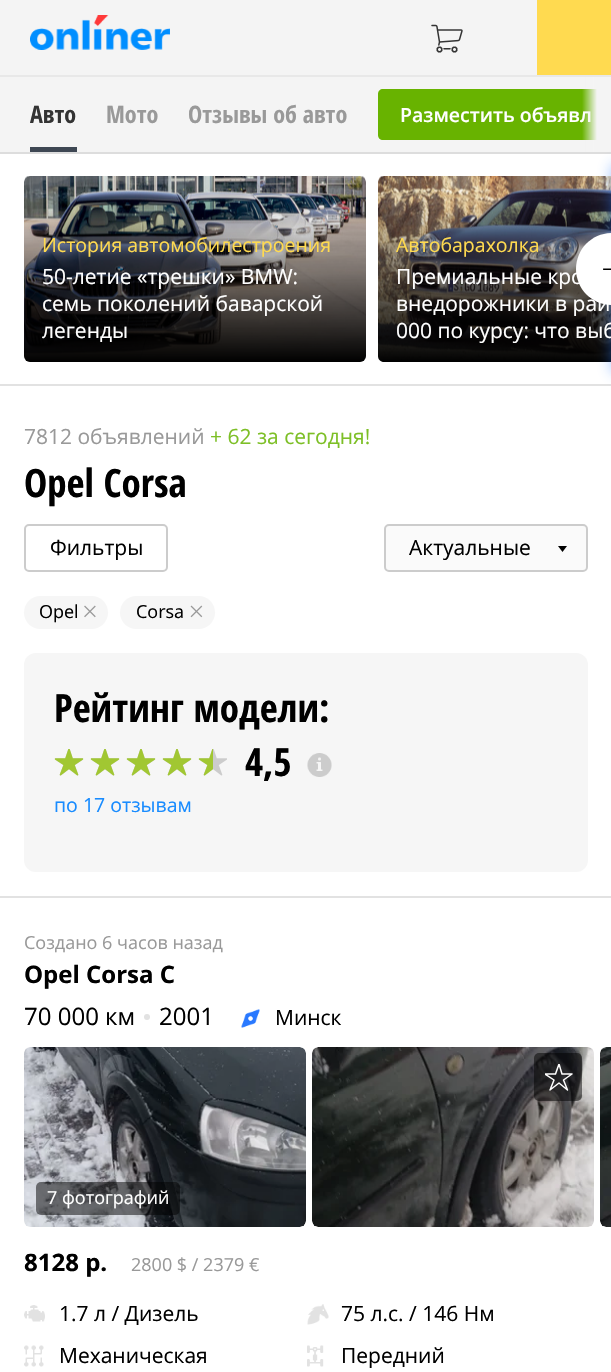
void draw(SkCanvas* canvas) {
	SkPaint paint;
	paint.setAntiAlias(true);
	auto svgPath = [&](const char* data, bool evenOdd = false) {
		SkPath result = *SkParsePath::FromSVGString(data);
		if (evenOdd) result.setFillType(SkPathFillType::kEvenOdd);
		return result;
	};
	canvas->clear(0xffffffff);
	paint.setColor(0xfff4f4f4);
	canvas->drawRect(SkRect::MakeXYWH(0, 0, 537, 75), paint);
	paint.setColor(0xffe8e8e8);
	canvas->drawRect(SkRect::MakeXYWH(0, 75, 611, 2), paint);
	canvas->drawImageRect(SkImages::DeferredFromEncodedData(SkData::MakeFromFileName("img1.png")), SkRect::MakeXYWH(30, 15, 140, 35), SkSamplingOptions());
	canvas->drawImageRect(SkImages::DeferredFromEncodedData(SkData::MakeFromFileName("img2.png")), SkRect::MakeXYWH(431, 24, 32, 29), SkSamplingOptions());
	paint.setColor(0xffffda50);
	canvas->drawRect(SkRect::MakeXYWH(537, 0, 74, 75), paint);
	paint.setColor(0xfff4f4f4);
	canvas->drawRect(SkRect::MakeXYWH(0, 77, 597, 75), paint);
	paint.setColor(0xffdddddd);
	canvas->drawRect(SkRect::MakeXYWH(0, 152, 611, 2), paint);
	SkFont f1(fontMgr->matchFamilyStyle("Open Sans Condensed", SkFontStyle::Bold()), 24);
	f1.setSubpixel(true);
	paint.setColor(0xff333333);
	canvas->drawString("Авто", 30, 123, f1, paint);
	paint.setColor(0xff3e4753);
	canvas->drawRect(SkRect::MakeXYWH(30, 147, 47, 5), paint);
	paint.setColor(0xff999999);
	canvas->drawString("Мото", 106, 123, f1, paint);
	canvas->drawString("Отзывы об авто", 188, 123, f1, paint);
	paint.setColor(0xff68b300);
	canvas->drawPath(svgPath("M383 89H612V140H383C380 140 378 138 378 135V94C378 91 380 89 383 89Z"), paint);
	SkFont f2(fontMgr->matchFamilyStyle("Open Sans", SkFontStyle(600, SkFontStyle::kNormal_Width, SkFontStyle::kUpright_Slant)), 19.5);
	f2.setSubpixel(true);
	paint.setColor(0xffffffff);
	canvas->drawString("Разместить объявл", 400, 122, f2, paint);
	{
		const SkColor colors[] = {0x00f4f4f4, 0xfff4f4f4, 0xfff4f4f4};
		const float stops[] = {0, 0.5, 1};
		const SkPoint ends[] = {{582, 114}, {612, 114}};
		paint.setShader(SkGradientShader::MakeLinear(ends, colors, stops, 3, SkTileMode::kClamp));
		paint.setAlpha(255);
	}
	canvas->drawRect(SkRect::MakeXYWH(582, 77, 29, 75), paint);
	paint.setShader(nullptr);
	paint.setColor(0xffe2e2e2);
	canvas->drawRect(SkRect::MakeXYWH(0, 384, 611, 2), paint);
	canvas->drawImageRect(SkImages::DeferredFromEncodedData(SkData::MakeFromFileName("img5.png")), SkRect::MakeXYWH(378, 176, 233, 186), SkSamplingOptions());
	{
		const SkColor colors[] = {0x00000000, 0x00000000, 0xff000000};
		const float stops[] = {0, 0.16, 1};
		const SkPoint ends[] = {{549, 175}, {549, 362}};
		paint.setShader(SkGradientShader::MakeLinear(ends, colors, stops, 3, SkTileMode::kClamp));
		paint.setAlpha(255);
	}
	canvas->drawPath(svgPath("M384 176H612V362H384C380.5 362 378 359.5 378 356V182C378 178.5 380.5 176 384 176Z"), paint);
	paint.setShader(nullptr);
	paint.setColor(0x26000000);
	paint.setMaskFilter(SkMaskFilter::MakeBlur(kNormal_SkBlurStyle, 11));
	canvas->drawRoundRect(SkRect::MakeXYWH(576, 236, 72, 72), 36, 36, paint);
	paint.setMaskFilter(nullptr);
	paint.setColor(0x802979ff);
	paint.setMaskFilter(SkMaskFilter::MakeBlur(kNormal_SkBlurStyle, 7.5));
	canvas->drawRect(SkRect::MakeXYWH(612, 165, 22, 207), paint);
	paint.setMaskFilter(nullptr);
	paint.setColor(0xffffffff);
	canvas->drawPath(svgPath("M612 233V305C592 305 576 289 576 269C576 249 592 233 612 233Z"), paint);
	canvas->drawImageRect(SkImages::DeferredFromEncodedData(SkData::MakeFromFileName("img3.png")), SkRect::MakeXYWH(603, 268, 8, 2), SkSamplingOptions());
	canvas->drawImageRect(SkImages::DeferredFromEncodedData(SkData::MakeFromFileName("img4.png")), SkRect::MakeXYWH(24, 176, 342, 186), SkSamplingOptions());
	{
		const SkColor colors[] = {0x00000000, 0x00000000, 0xff000000};
		const float stops[] = {0, 0.16, 1};
		const SkPoint ends[] = {{195, 175}, {195, 362}};
		paint.setShader(SkGradientShader::MakeLinear(ends, colors, stops, 3, SkTileMode::kClamp));
		paint.setAlpha(255);
	}
	canvas->drawRoundRect(SkRect::MakeXYWH(24, 176, 342, 186), 6, 6, paint);
	SkFont f3(fontMgr->matchFamilyStyle("Open Sans", SkFontStyle::Normal()), 19.5);
	f3.setSubpixel(true);
	paint.setShader(nullptr);
	paint.setColor(0xffffda50);
	canvas->drawString("История автомобилестроения", 42, 252, f3, paint);
	SkFont f4(fontMgr->matchFamilyStyle("Open Sans", SkFontStyle::Normal()), 21);
	f4.setSubpixel(true);
	paint.setColor(0xffffffff);
	canvas->drawString("50-летие «трешки» BMW:", 42, 284, f4, paint);
	canvas->drawString("семь поколений баварской", 42, 311, f4, paint);
	canvas->drawString("легенды", 42, 338, f4, paint);
	paint.setColor(0xffffda50);
	canvas->drawString("Автобарахолка", 396, 252, f3, paint);
	paint.setColor(0xffffffff);
	canvas->drawString("Премиальные кро", 396, 284, f4, paint);
	canvas->drawString("внедорожники в рай", 396, 311, f4, paint);
	canvas->drawString("000 по курсу: что выб", 396, 338, f4, paint);
	paint.setColor(0xff999999);
	canvas->drawString("7812 объявлений", 24, 444, f4, paint);
	paint.setColor(0xff7dbf26);
	canvas->drawString("+ 62 за сегодня!", 210, 444, f4, paint);
	SkFont f5(fontMgr->matchFamilyStyle("Open Sans Condensed", SkFontStyle::Bold()), 39);
	f5.setSubpixel(true);
	paint.setColor(0xff000000);
	canvas->drawString("Opel Corsa", 24, 497, f5, paint);
	paint.setStroke(true);
	paint.setStrokeWidth(2);
	paint.setColor(0xffcccccc);
	canvas->drawRoundRect(SkRect::MakeXYWH(25, 525, 142, 46), 4, 4, paint);
	paint.setStroke(false);
	paint.setColor(0xff000000);
	canvas->drawString("Фильтры", 50, 555, f4, paint);
	paint.setColor(0xfffafafa);
	canvas->drawRoundRect(SkRect::MakeXYWH(385, 525, 202, 46), 4, 4, paint);
	paint.setStroke(true);
	paint.setColor(0xffcccccc);
	canvas->drawRoundRect(SkRect::MakeXYWH(385, 525, 202, 46), 4, 4, paint);
	paint.setStroke(false);
	paint.setColor(0xff000000);
	canvas->drawString("Актуальные", 409, 555, f4, paint);
	canvas->drawPath(svgPath("M558 546H567L562.5 552Z"), paint);
	paint.setColor(0xfff6f6f6);
	canvas->drawRoundRect(SkRect::MakeXYWH(24, 596, 84, 33), 16.5, 16.5, paint);
	SkFont f6(fontMgr->matchFamilyStyle("Open Sans", SkFontStyle::Normal()), 18);
	f6.setSubpixel(true);
	paint.setColor(0xff000000);
	canvas->drawString("Opel", 39, 618, f6, paint);
	canvas->drawImageRect(SkImages::DeferredFromEncodedData(SkData::MakeFromFileName("img6.png")), SkRect::MakeXYWH(84, 605, 12, 13), SkSamplingOptions());
	paint.setColor(0xfff6f6f6);
	canvas->drawRoundRect(SkRect::MakeXYWH(120, 596, 95, 33), 16.5, 16.5, paint);
	paint.setColor(0xff000000);
	canvas->drawString("Corsa", 136, 618, f6, paint);
	canvas->drawImageRect(SkImages::DeferredFromEncodedData(SkData::MakeFromFileName("img7.png")), SkRect::MakeXYWH(190, 605, 13, 13), SkSamplingOptions());
	paint.setColor(0xfff6f6f6);
	canvas->drawRoundRect(SkRect::MakeXYWH(24, 653, 564, 219), 12, 12, paint);
	paint.setColor(0xff000000);
	canvas->drawString("Рейтинг модели:", 54, 722, f5, paint);
	canvas->drawImageRect(SkImages::DeferredFromEncodedData(SkData::MakeFromFileName("img8.png")), SkRect::MakeXYWH(199, 749, 28, 27), SkSamplingOptions());
	canvas->drawImageRect(SkImages::DeferredFromEncodedData(SkData::MakeFromFileName("img8.png")), SkRect::MakeXYWH(163, 749, 28, 27), SkSamplingOptions());
	canvas->drawImageRect(SkImages::DeferredFromEncodedData(SkData::MakeFromFileName("img8.png")), SkRect::MakeXYWH(127, 749, 28, 27), SkSamplingOptions());
	canvas->drawImageRect(SkImages::DeferredFromEncodedData(SkData::MakeFromFileName("img8.png")), SkRect::MakeXYWH(91, 749, 28, 27), SkSamplingOptions());
	canvas->drawImageRect(SkImages::DeferredFromEncodedData(SkData::MakeFromFileName("img8.png")), SkRect::MakeXYWH(55, 749, 28, 27), SkSamplingOptions());
	canvas->drawImageRect(SkImages::DeferredFromEncodedData(SkData::MakeFromFileName("img9.png")), SkRect::MakeXYWH(198, 749, 15, 27), SkSamplingOptions());
	canvas->drawImageRect(SkImages::DeferredFromEncodedData(SkData::MakeFromFileName("img10.png")), SkRect::MakeXYWH(162, 749, 30, 27), SkSamplingOptions());
	canvas->drawImageRect(SkImages::DeferredFromEncodedData(SkData::MakeFromFileName("img10.png")), SkRect::MakeXYWH(126, 749, 30, 27), SkSamplingOptions());
	canvas->drawImageRect(SkImages::DeferredFromEncodedData(SkData::MakeFromFileName("img10.png")), SkRect::MakeXYWH(90, 749, 30, 27), SkSamplingOptions());
	canvas->drawImageRect(SkImages::DeferredFromEncodedData(SkData::MakeFromFileName("img10.png")), SkRect::MakeXYWH(54, 749, 30, 27), SkSamplingOptions());
	canvas->drawString("4,5", 245, 776, f5, paint);
	canvas->drawImageRect(SkImages::DeferredFromEncodedData(SkData::MakeFromFileName("img11.png")), SkRect::MakeXYWH(307, 753, 25, 24), SkSamplingOptions());
	paint.setColor(0xff198cff);
	canvas->drawString("по 17 отзывам", 54, 812, f3, paint);
	paint.setColor(0xffe2e2e2);
	canvas->drawRect(SkRect::MakeXYWH(0, 896, 611, 2), paint);
	paint.setColor(0xff999999);
	canvas->drawString("Создано 6 часов назад", 24, 949, f6, paint);
	SkFont f7(fontMgr->matchFamilyStyle("Open Sans", SkFontStyle::Bold()), 24);
	f7.setSubpixel(true);
	paint.setColor(0xff000000);
	canvas->drawString("Opel Corsa C", 24, 983, f7, paint);
	SkFont f8(fontMgr->matchFamilyStyle("Open Sans", SkFontStyle::Normal()), 24);
	f8.setSubpixel(true);
	canvas->drawString("70 000 км", 24, 1025, f8, paint);
	paint.setColor(0xffe2e2e2);
	canvas->drawCircle(147, 1017, 3, paint);
	paint.setColor(0xff000000);
	canvas->drawString("2001", 159, 1025, f8, paint);
	canvas->drawImageRect(SkImages::DeferredFromEncodedData(SkData::MakeFromFileName("img12.png")), SkRect::MakeXYWH(241, 1009, 19, 19), SkSamplingOptions());
	canvas->drawString("Минск", 275, 1025, f4, paint);
	paint.setColor(0xfff6f6f6);
	canvas->drawRoundRect(SkRect::MakeXYWH(24, 1047, 282, 180), 6, 6, paint);
	canvas->drawImageRect(SkImages::DeferredFromEncodedData(SkData::MakeFromFileName("img13.png")), SkRect::MakeXYWH(24, 1047, 282, 180), SkSamplingOptions());
	canvas->drawRoundRect(SkRect::MakeXYWH(312, 1047, 282, 180), 6, 6, paint);
	canvas->drawImageRect(SkImages::DeferredFromEncodedData(SkData::MakeFromFileName("img14.png")), SkRect::MakeXYWH(312, 1047, 282, 180), SkSamplingOptions());
	canvas->drawPath(svgPath("M606 1047H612V1227H606C602.5 1227 600 1224.5 600 1221V1053C600 1049.5 602.5 1047 606 1047Z"), paint);
	canvas->drawImageRect(SkImages::DeferredFromEncodedData(SkData::MakeFromFileName("img15.png")), SkRect::MakeXYWH(600, 1047, 11, 180), SkSamplingOptions());
	paint.setColor(0x80000000);
	canvas->drawRoundRect(SkRect::MakeXYWH(534, 1053, 48, 48), 5, 5, paint);
	canvas->save();
	canvas->clipRect(SkRect::MakeXYWH(545, 1064, 28, 27));
	paint.setStroke(true);
	paint.setStrokeWidth(1.5);
	paint.setStrokeJoin(SkPaint::kRound_Join);
	paint.setColor(0xffffffff);
	canvas->drawPath(svgPath("M559 1064L555.5 1074H545L554 1080L550 1090L559 1083L567.5 1090L563.5 1080L572 1074H562Z"), paint);
	canvas->restore();
	paint.setStroke(false);
	paint.setColor(0x80000000);
	canvas->drawRoundRect(SkRect::MakeXYWH(36, 1182, 144, 33), 5, 5, paint);
	paint.setColor(0xffffffff);
	canvas->drawString("7 фотографий", 47, 1204, f6, paint);
	paint.setColor(0xff000000);
	canvas->drawString("8128 р.", 24, 1271, f7, paint);
	paint.setColor(0xff999999);
	canvas->drawString("2800 $ / 2379 €", 131, 1271, f6, paint);
	canvas->drawImageRect(SkImages::DeferredFromEncodedData(SkData::MakeFromFileName("img16.png")), SkRect::MakeXYWH(24, 1305, 21, 17), SkSamplingOptions());
	paint.setColor(0xff000000);
	canvas->drawString("1.7 л / Дизель", 59, 1321, f4, paint);
	canvas->drawImageRect(SkImages::DeferredFromEncodedData(SkData::MakeFromFileName("img17.png")), SkRect::MakeXYWH(24, 1345, 20, 22), SkSamplingOptions());
	canvas->drawString("Механическая", 59, 1363, f4, paint);
	canvas->drawImageRect(SkImages::DeferredFromEncodedData(SkData::MakeFromFileName("img18.png")), SkRect::MakeXYWH(307, 1304, 22, 21), SkSamplingOptions());
	canvas->drawString("75 л.с. / 146 Нм", 341, 1321, f4, paint);
	canvas->drawImageRect(SkImages::DeferredFromEncodedData(SkData::MakeFromFileName("img19.png")), SkRect::MakeXYWH(307, 1345, 17, 22), SkSamplingOptions());
	canvas->drawString("Передний", 341, 1363, f4, paint);
}
